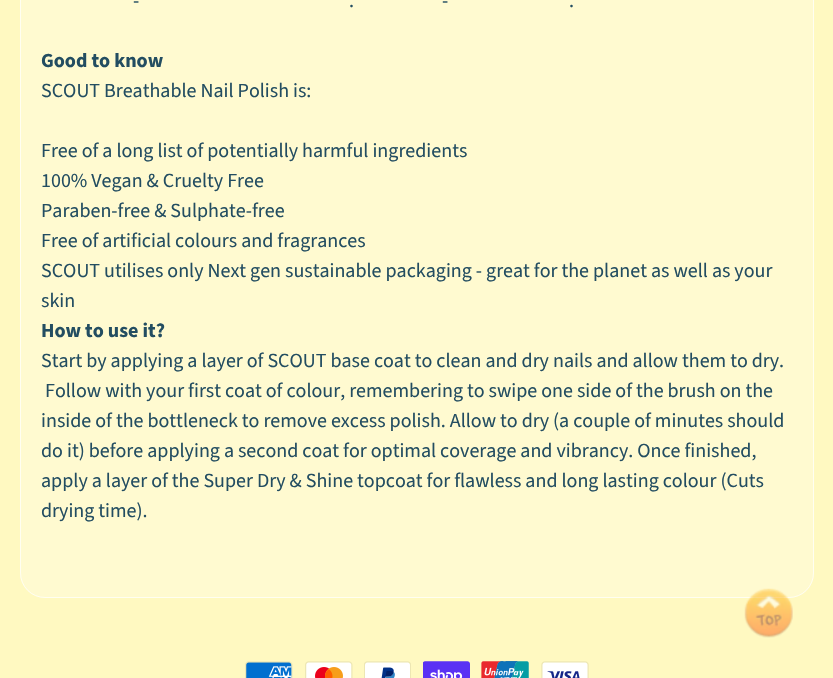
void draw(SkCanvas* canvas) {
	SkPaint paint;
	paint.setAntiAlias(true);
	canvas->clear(0xfffff9c1);
	paint.setColor(0xfffffad0);
	canvas->drawRoundRect(SkRect::MakeXYWH(20, -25, 794, 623), 25, 25, paint);
	paint.setStroke(true);
	paint.setStrokeWidth(1);
	paint.setColor(0xb3ffffff);
	canvas->drawRoundRect(SkRect::MakeXYWH(20.5, -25.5, 793, 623), 24.5, 24.5, paint);
	SkFont f1(fontMgr->matchFamilyStyle("Source Sans Pro", SkFontStyle::Normal()), 20);
	f1.setSubpixel(true);
	paint.setStroke(false);
	paint.setColor(0xff234d61);
	canvas->drawString("-", 133, 7, f1, paint);
	canvas->drawString("-", 442, 7, f1, paint);
	canvas->drawString(".", 349, 7, f1, paint);
	canvas->drawString(".", 569, 7, f1, paint);
	SkFont f2(fontMgr->matchFamilyStyle("Source Sans Pro", SkFontStyle::Bold()), 20);
	f2.setSubpixel(true);
	canvas->drawString("Good to know", 41, 67, f2, paint);
	canvas->drawString("SCOUT Breathable Nail Polish is:", 41, 97, f1, paint);
	canvas->drawString("Free of a long list of potentially harmful ingredients", 41, 157, f1, paint);
	canvas->drawString("100% Vegan & Cruelty Free", 41, 187, f1, paint);
	canvas->drawString("Paraben-free & Sulphate-free", 41, 217, f1, paint);
	canvas->drawString("Free of artificial colours and fragrances", 41, 247, f1, paint);
	canvas->drawString("SCOUT utilises only Next gen sustainable packaging - great for the planet as well as your", 41, 277, f1, paint);
	canvas->drawString("skin", 41, 307, f1, paint);
	canvas->drawString("How to use it?", 41, 337, f2, paint);
	canvas->drawString("Start by applying a layer of SCOUT base coat to clean and dry nails and allow them to dry.", 41, 367, f1, paint);
	canvas->drawString("Follow with your first coat of colour, remembering to swipe one side of the brush on the", 45, 397, f1, paint);
	canvas->drawString("inside of the bottleneck to remove excess polish. Allow to dry (a couple of minutes should", 41, 427, f1, paint);
	canvas->drawString("do it) before applying a second coat for optimal coverage and vibrancy. Once finished,", 41, 457, f1, paint);
	canvas->drawString("apply a layer of the Super Dry & Shine topcoat for flawless and long lasting colour (Cuts", 41, 487, f1, paint);
	canvas->drawString("drying time).", 41, 517, f1, paint);
	canvas->drawImageRect(SkImages::DeferredFromEncodedData(SkData::MakeFromFileName("img1.png")), SkRect::MakeXYWH(744, 588, 49, 50), SkSamplingOptions());
	canvas->drawImageRect(SkImages::DeferredFromEncodedData(SkData::MakeFromFileName("img2.png")), SkRect::MakeXYWH(245, 661, 48, 17), SkSamplingOptions());
	canvas->drawImageRect(SkImages::DeferredFromEncodedData(SkData::MakeFromFileName("img3.png")), SkRect::MakeXYWH(305, 661, 48, 17), SkSamplingOptions());
	canvas->drawImageRect(SkImages::DeferredFromEncodedData(SkData::MakeFromFileName("img4.png")), SkRect::MakeXYWH(364, 661, 47, 17), SkSamplingOptions());
	canvas->drawImageRect(SkImages::DeferredFromEncodedData(SkData::MakeFromFileName("img5.png")), SkRect::MakeXYWH(423, 661, 47, 17), SkSamplingOptions());
	canvas->drawImageRect(SkImages::DeferredFromEncodedData(SkData::MakeFromFileName("img6.png")), SkRect::MakeXYWH(481, 661, 48, 17), SkSamplingOptions());
	canvas->drawImageRect(SkImages::DeferredFromEncodedData(SkData::MakeFromFileName("img7.png")), SkRect::MakeXYWH(541, 661, 48, 17), SkSamplingOptions());
}
